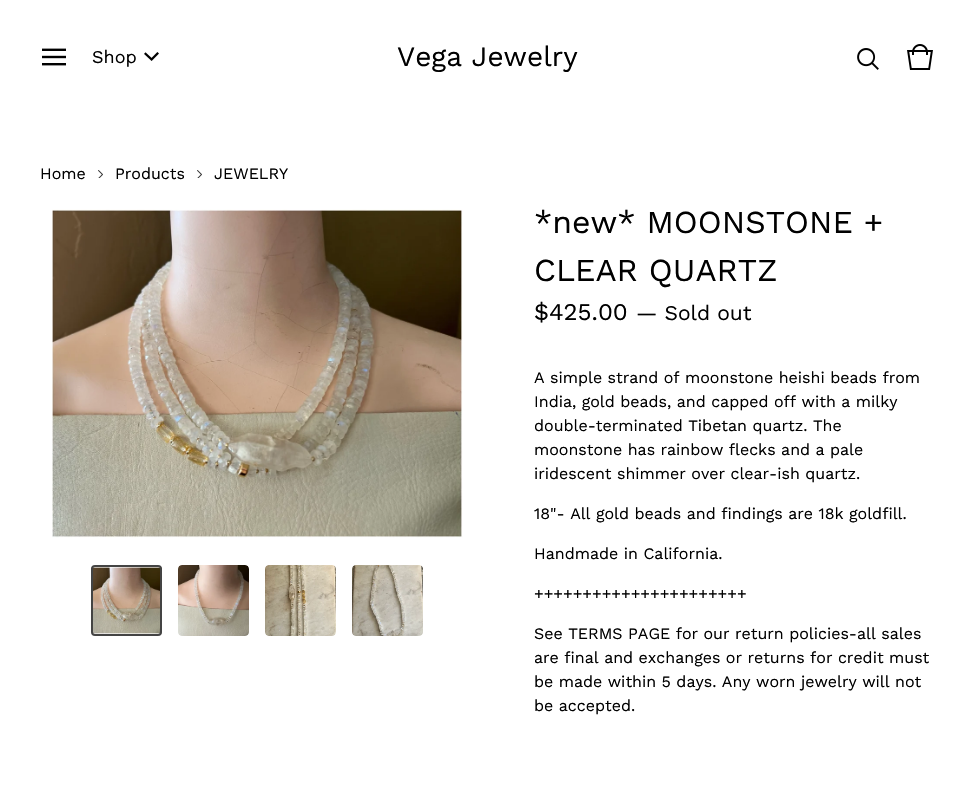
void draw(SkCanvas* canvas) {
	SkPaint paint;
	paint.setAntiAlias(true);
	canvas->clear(0xffffffff);
	canvas->drawImageRect(SkImages::DeferredFromEncodedData(SkData::MakeFromFileName("img1.png")), SkRect::MakeXYWH(42, 48, 24, 18), SkSamplingOptions());
	SkFont f1(fontMgr->matchFamilyStyle("Work Sans", SkFontStyle::Normal()), 18);
	f1.setSubpixel(true);
	paint.setColor(0xff000000);
	canvas->drawString("Shop", 92, 63, f1, paint);
	canvas->drawImageRect(SkImages::DeferredFromEncodedData(SkData::MakeFromFileName("img2.png")), SkRect::MakeXYWH(144, 52, 15, 9), SkSamplingOptions());
	SkFont f2(fontMgr->matchFamilyStyle("Work Sans", SkFontStyle::Normal()), 28);
	f2.setSubpixel(true);
	canvas->drawString("Vega Jewelry", 397, 66, f2, paint);
	canvas->drawImageRect(SkImages::DeferredFromEncodedData(SkData::MakeFromFileName("img3.png")), SkRect::MakeXYWH(857, 48, 22, 22), SkSamplingOptions());
	canvas->drawImageRect(SkImages::DeferredFromEncodedData(SkData::MakeFromFileName("img4.png")), SkRect::MakeXYWH(907, 44, 26, 26), SkSamplingOptions());
	SkFont f3(fontMgr->matchFamilyStyle("Work Sans", SkFontStyle::Normal()), 16);
	f3.setSubpixel(true);
	canvas->drawString("Home", 40, 179, f3, paint);
	canvas->drawImageRect(SkImages::DeferredFromEncodedData(SkData::MakeFromFileName("img5.png")), SkRect::MakeXYWH(98, 170, 5, 8), SkSamplingOptions());
	canvas->drawString("Products", 115, 179, f3, paint);
	canvas->drawImageRect(SkImages::DeferredFromEncodedData(SkData::MakeFromFileName("img5.png")), SkRect::MakeXYWH(197, 170, 5, 8), SkSamplingOptions());
	canvas->drawString("JEWELRY", 214, 179, f3, paint);
	canvas->drawImageRect(SkImages::DeferredFromEncodedData(SkData::MakeFromFileName("img6.png")), SkRect::MakeXYWH(52, 209, 411, 329), SkSamplingOptions());
	canvas->drawImageRect(SkImages::DeferredFromEncodedData(SkData::MakeFromFileName("img7.png")), SkRect::MakeXYWH(91, 567, 71, 67), SkSamplingOptions());
	paint.setStroke(true);
	paint.setStrokeWidth(2);
	paint.setColor(0xff444444);
	canvas->drawRoundRect(SkRect::MakeXYWH(92, 566, 69, 69), 3, 3, paint);
	canvas->drawImageRect(SkImages::DeferredFromEncodedData(SkData::MakeFromFileName("img8.png")), SkRect::MakeXYWH(178, 565, 71, 71), SkSamplingOptions());
	canvas->drawImageRect(SkImages::DeferredFromEncodedData(SkData::MakeFromFileName("img9.png")), SkRect::MakeXYWH(265, 565, 71, 71), SkSamplingOptions());
	canvas->drawImageRect(SkImages::DeferredFromEncodedData(SkData::MakeFromFileName("img10.png")), SkRect::MakeXYWH(352, 565, 71, 71), SkSamplingOptions());
	SkFont f4(fontMgr->matchFamilyStyle("Work Sans", SkFontStyle::Normal()), 32);
	f4.setSubpixel(true);
	paint.setStroke(false);
	paint.setColor(0xff000000);
	canvas->drawString("*new* MOONSTONE +", 534, 233, f4, paint);
	canvas->drawString("CLEAR QUARTZ", 534, 281, f4, paint);
	SkFont f5(fontMgr->matchFamilyStyle("Work Sans", SkFontStyle::Normal()), 24);
	f5.setSubpixel(true);
	canvas->drawString("$425.00", 534, 320, f5, paint);
	SkFont f6(fontMgr->matchFamilyStyle("Work Sans", SkFontStyle::Normal()), 21);
	f6.setSubpixel(true);
	canvas->drawString("— Sold out", 636, 320, f6, paint);
	canvas->drawString("A simple strand of moonstone heishi beads from", 534, 383, f3, paint);
	canvas->drawString("India, gold beads, and capped off with a milky", 534, 407, f3, paint);
	canvas->drawString("double-terminated Tibetan quartz. The", 534, 431, f3, paint);
	canvas->drawString("moonstone has rainbow flecks and a pale", 534, 455, f3, paint);
	canvas->drawString("iridescent shimmer over clear-ish quartz.", 534, 479, f3, paint);
	canvas->drawString("18\"- All gold beads and findings are 18k goldfill.", 534, 519, f3, paint);
	canvas->drawString("Handmade in California.", 534, 559, f3, paint);
	canvas->drawString("++++++++++++++++++++++", 534, 599, f3, paint);
	canvas->drawString("See TERMS PAGE for our return policies-all sales", 534, 639, f3, paint);
	canvas->drawString("are final and exchanges or returns for credit must", 534, 663, f3, paint);
	canvas->drawString("be made within 5 days. Any worn jewelry will not", 534, 687, f3, paint);
	canvas->drawString("be accepted.", 534, 711, f3, paint);
}
